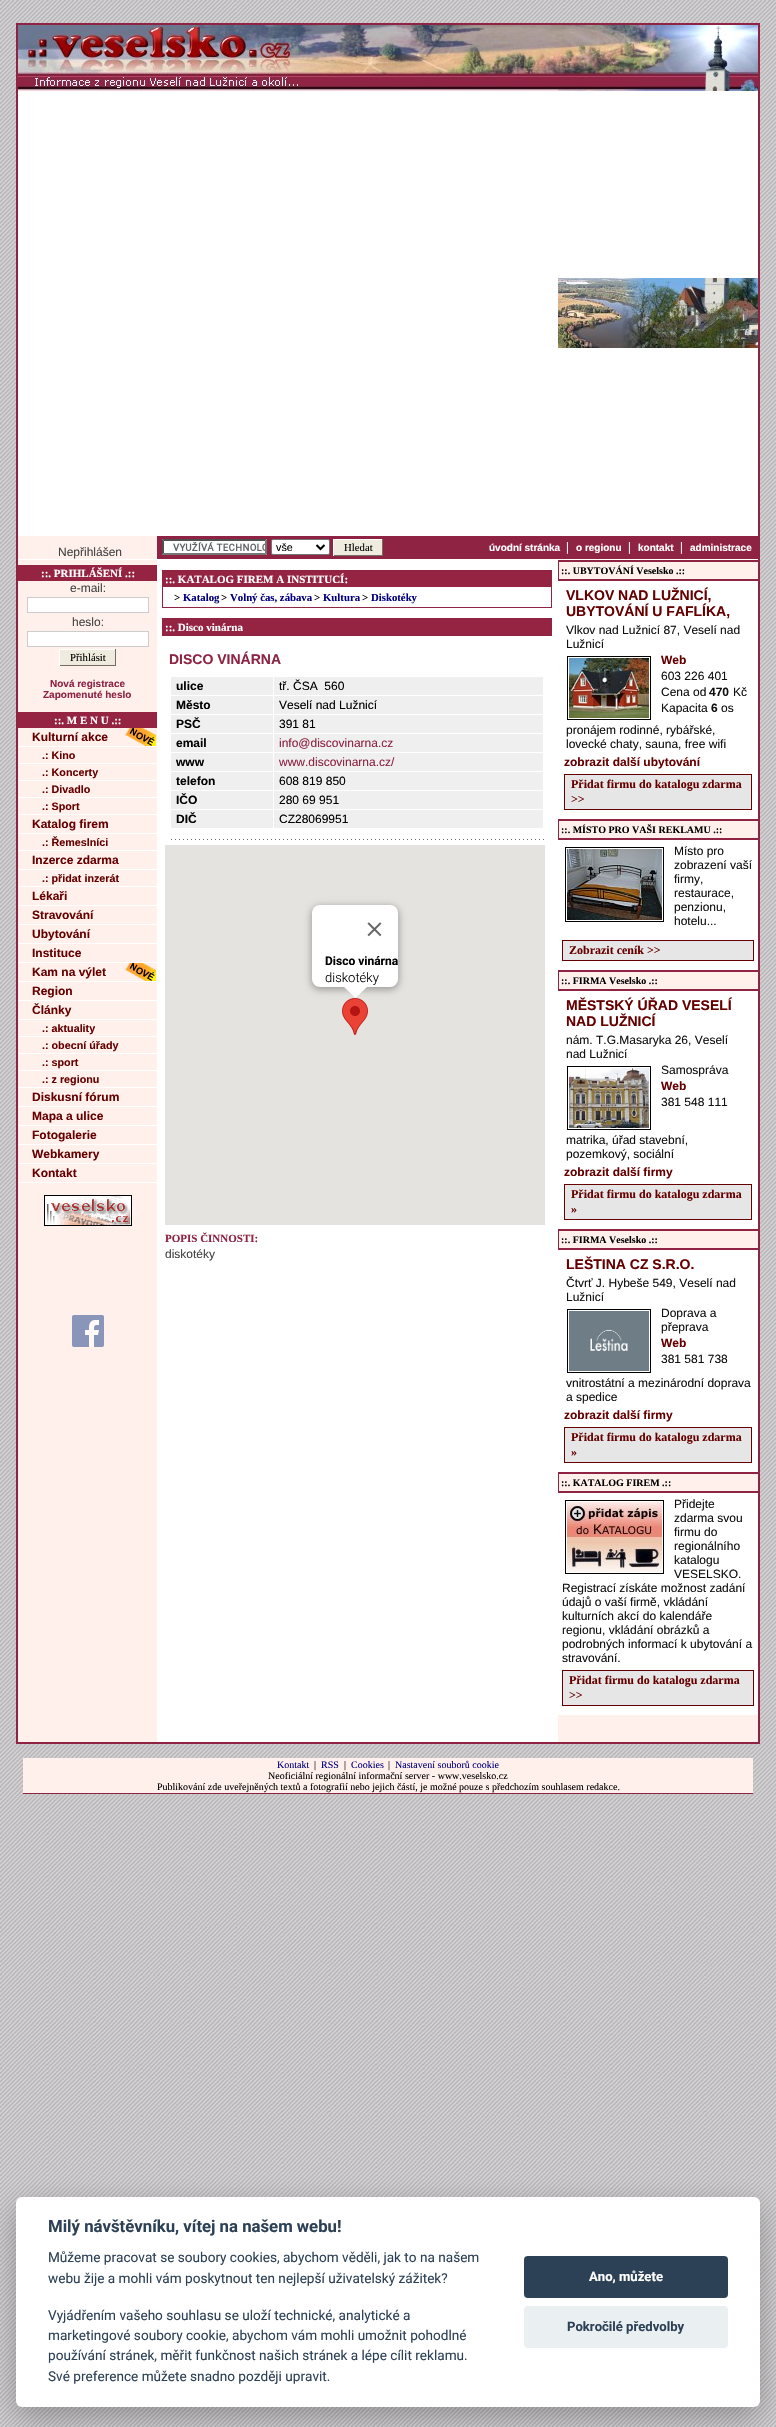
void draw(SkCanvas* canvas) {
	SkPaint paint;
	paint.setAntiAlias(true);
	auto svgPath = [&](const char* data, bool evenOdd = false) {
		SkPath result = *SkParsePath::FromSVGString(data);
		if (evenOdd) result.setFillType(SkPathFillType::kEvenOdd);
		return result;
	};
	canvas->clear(0xffffffff);
	canvas->drawImageRect(SkImages::DeferredFromEncodedData(SkData::MakeFromFileName("img1.png")), SkRect::MakeXYWH(0, 0, 776, 2427), SkSamplingOptions());
	paint.setColor(0xffffffff);
	canvas->drawRect(SkRect::MakeXYWH(18, 91, 740, 444), paint);
	paint.setColor(0xff8e2344);
	canvas->drawRect(SkRect::MakeXYWH(16, 23, 744, 2), paint);
	canvas->drawRect(SkRect::MakeXYWH(758, 23, 2, 512), paint);
	canvas->drawRect(SkRect::MakeXYWH(16, 23, 2, 512), paint);
	canvas->drawImageRect(SkImages::DeferredFromEncodedData(SkData::MakeFromFileName("img2.png")), SkRect::MakeXYWH(18, 25, 540, 66), SkSamplingOptions());
	canvas->drawImageRect(SkImages::DeferredFromEncodedData(SkData::MakeFromFileName("img3.png")), SkRect::MakeXYWH(558, 25, 200, 66), SkSamplingOptions());
	canvas->drawImageRect(SkImages::DeferredFromEncodedData(SkData::MakeFromFileName("img4.png")), SkRect::MakeXYWH(558, 278, 200, 70), SkSamplingOptions());
	paint.setColor(0xffffffff);
	canvas->drawRect(SkRect::MakeXYWH(17, 535, 742, 1), paint);
	canvas->drawRect(SkRect::MakeXYWH(17, 559, 742, 1), paint);
	paint.setColor(0xff8e2344);
	canvas->drawRect(SkRect::MakeXYWH(758, 535, 2, 1209), paint);
	canvas->drawRect(SkRect::MakeXYWH(16, 535, 2, 25), paint);
	paint.setColor(0xfffff0eb);
	canvas->drawRect(SkRect::MakeXYWH(18, 536, 139, 23), paint);
	SkFont f1(fontMgr->matchFamilyStyle("Liberation Sans", SkFontStyle::Normal()), 12);
	f1.setSubpixel(true);
	paint.setColor(0xff434343);
	canvas->drawString("Nepřihlášen", 58, 556, f1, paint);
	paint.setColor(0xff8e2344);
	canvas->drawRect(SkRect::MakeXYWH(157, 536, 601, 23), paint);
	paint.setColor(0xffffffff);
	canvas->drawRect(SkRect::MakeXYWH(162, 539, 105, 16), paint);
	canvas->drawImageRect(SkImages::DeferredFromEncodedData(SkData::MakeFromFileName("img5.png")), SkRect::MakeXYWH(173, 542, 92, 9), SkSamplingOptions());
	paint.setColor(0xff4f4f4f);
	canvas->drawPath(svgPath("M162 539H267L265 541H164Z"), paint);
	paint.setColor(0xff767676);
	canvas->drawPath(svgPath("M267 539V555L265 553V541Z"), paint);
	canvas->drawPath(svgPath("M267 555H162L164 553H265Z"), paint);
	paint.setColor(0xff4f4f4f);
	canvas->drawPath(svgPath("M162 555V539L164 541V553Z"), paint);
	paint.setColor(0xffffffff);
	canvas->drawRoundRect(SkRect::MakeXYWH(271.5, 539.5, 58, 15), 1.5, 1.5, paint);
	paint.setStroke(true);
	paint.setStrokeWidth(1);
	paint.setColor(0xff767676);
	canvas->drawRoundRect(SkRect::MakeXYWH(271.5, 539.5, 58, 15), 1.5, 1.5, paint);
	paint.setStrokeWidth(2);
	paint.setColor(0xff000000);
	canvas->drawPath(svgPath("M316.5 545L320.5 549L324.5 545"), paint);
	SkFont f2(fontMgr->matchFamilyStyle("Liberation Sans", SkFontStyle::Normal()), 10.75);
	f2.setSubpixel(true);
	paint.setStroke(false);
	canvas->drawString("vše", 276, 551, f2, paint);
	paint.setColor(0xffefebde);
	canvas->drawRect(SkRect::MakeXYWH(334, 540, 48, 15), paint);
	paint.setColor(0xffffffff);
	canvas->drawRect(SkRect::MakeXYWH(333, 539, 50, 1), paint);
	paint.setColor(0xff736d63);
	canvas->drawRect(SkRect::MakeXYWH(382, 539, 1, 17), paint);
	canvas->drawRect(SkRect::MakeXYWH(333, 555, 50, 1), paint);
	paint.setColor(0xffffffff);
	canvas->drawRect(SkRect::MakeXYWH(333, 539, 1, 17), paint);
	SkFont f3(fontMgr->matchFamilyStyle("Liberation Serif", SkFontStyle::Normal()), 10.75);
	f3.setSubpixel(true);
	paint.setColor(0xff000000);
	canvas->drawString("Hledat", 344, 551, f3, paint);
	SkFont f4(fontMgr->matchFamilyStyle("Liberation Sans", SkFontStyle::Bold()), 10);
	f4.setSubpixel(true);
	paint.setColor(0xffffffff);
	canvas->drawString("úvodní stránka", 489, 551, f4, paint);
	SkFont f5(fontMgr->matchFamilyStyle("Liberation Serif", SkFontStyle::Bold()), 13);
	f5.setSubpixel(true);
	canvas->drawString("|", 566, 551, f5, paint);
	canvas->drawString("o regionu", 576, 551, f4, paint);
	canvas->drawString("|", 628, 551, f5, paint);
	canvas->drawString("kontakt", 638, 551, f4, paint);
	canvas->drawString("|", 680, 551, f5, paint);
	canvas->drawString("administrace", 690, 551, f4, paint);
	canvas->drawRect(SkRect::MakeXYWH(157, 560, 401, 1182), paint);
	paint.setColor(0xff8e2344);
	canvas->drawRect(SkRect::MakeXYWH(16, 1742, 744, 2), paint);
	canvas->drawRect(SkRect::MakeXYWH(16, 560, 2, 1184), paint);
	paint.setColor(0xfffff0eb);
	canvas->drawRect(SkRect::MakeXYWH(18, 560, 139, 1182), paint);
	paint.setColor(0xff942442);
	canvas->drawRect(SkRect::MakeXYWH(18, 565, 139, 16), paint);
	SkFont f6(fontMgr->matchFamilyStyle("Liberation Serif", SkFontStyle::Bold()), 11);
	f6.setSubpixel(true);
	paint.setColor(0xffffffff);
	canvas->drawString("::. PRIHLÁŠENÍ .::", 41, 577, f6, paint);
	paint.setColor(0xff434343);
	canvas->drawString("e-mail:", 70, 592, f1, paint);
	paint.setColor(0xffffffff);
	canvas->drawRect(SkRect::MakeXYWH(27.5, 597.5, 121, 15), paint);
	paint.setStroke(true);
	paint.setStrokeWidth(1);
	paint.setColor(0xffcccccc);
	canvas->drawRect(SkRect::MakeXYWH(27.5, 597.5, 121, 15), paint);
	paint.setStroke(false);
	paint.setColor(0xff434343);
	canvas->drawString("heslo:", 72, 626, f1, paint);
	paint.setColor(0xffffffff);
	canvas->drawRect(SkRect::MakeXYWH(27.5, 631.5, 121, 15), paint);
	paint.setStroke(true);
	paint.setColor(0xffcccccc);
	canvas->drawRect(SkRect::MakeXYWH(27.5, 631.5, 121, 15), paint);
	paint.setStroke(false);
	paint.setColor(0xffefebde);
	canvas->drawRect(SkRect::MakeXYWH(60, 650, 55, 15), paint);
	paint.setColor(0xffffffff);
	canvas->drawRect(SkRect::MakeXYWH(59, 649, 57, 1), paint);
	paint.setColor(0xff736d63);
	canvas->drawRect(SkRect::MakeXYWH(115, 649, 1, 17), paint);
	canvas->drawRect(SkRect::MakeXYWH(59, 665, 57, 1), paint);
	paint.setColor(0xffffffff);
	canvas->drawRect(SkRect::MakeXYWH(59, 649, 1, 17), paint);
	paint.setColor(0xff000000);
	canvas->drawString("Přihlásit", 70, 661, f3, paint);
	paint.setColor(0xff8e2344);
	canvas->drawString("Nová registrace", 50, 687, f4, paint);
	canvas->drawString("Zapomenuté heslo", 43, 698, f4, paint);
	paint.setColor(0xff942442);
	canvas->drawRect(SkRect::MakeXYWH(18, 712, 139, 16), paint);
	paint.setColor(0xffffffff);
	canvas->drawString("::. M E N U .::", 54, 724, f6, paint);
	canvas->drawImageRect(SkImages::DeferredFromEncodedData(SkData::MakeFromFileName("img6.png")), SkRect::MakeXYWH(125, 728, 31, 18), SkSamplingOptions());
	canvas->drawRect(SkRect::MakeXYWH(18, 746, 139, 1), paint);
	SkFont f7(fontMgr->matchFamilyStyle("Liberation Sans", SkFontStyle::Bold()), 12);
	f7.setSubpixel(true);
	paint.setColor(0xff660000);
	canvas->drawString("Kulturní akce", 32, 741, f7, paint);
	paint.setColor(0xffffffff);
	canvas->drawRect(SkRect::MakeXYWH(18, 763, 139, 1), paint);
	SkFont f8(fontMgr->matchFamilyStyle("Liberation Sans", SkFontStyle::Bold()), 10.75);
	f8.setSubpixel(true);
	paint.setColor(0xff660000);
	canvas->drawString(".: Kino", 42, 759, f8, paint);
	paint.setColor(0xffffffff);
	canvas->drawRect(SkRect::MakeXYWH(18, 780, 139, 1), paint);
	paint.setColor(0xff660000);
	canvas->drawString(".: Koncerty", 42, 776, f8, paint);
	paint.setColor(0xffffffff);
	canvas->drawRect(SkRect::MakeXYWH(18, 797, 139, 1), paint);
	paint.setColor(0xff660000);
	canvas->drawString(".: Divadlo", 42, 793, f8, paint);
	paint.setColor(0xffffffff);
	canvas->drawRect(SkRect::MakeXYWH(18, 814, 139, 1), paint);
	paint.setColor(0xff660000);
	canvas->drawString(".: Sport", 42, 810, f8, paint);
	paint.setColor(0xffffffff);
	canvas->drawRect(SkRect::MakeXYWH(18, 833, 139, 1), paint);
	paint.setColor(0xff660000);
	canvas->drawString("Katalog firem", 32, 828, f7, paint);
	paint.setColor(0xffffffff);
	canvas->drawRect(SkRect::MakeXYWH(18, 850, 139, 1), paint);
	paint.setColor(0xff660000);
	canvas->drawString(".: Řemeslníci", 42, 846, f8, paint);
	paint.setColor(0xffffffff);
	canvas->drawRect(SkRect::MakeXYWH(18, 869, 139, 1), paint);
	paint.setColor(0xff660000);
	canvas->drawString("Inzerce zdarma", 32, 864, f7, paint);
	paint.setColor(0xffffffff);
	canvas->drawRect(SkRect::MakeXYWH(18, 886, 139, 1), paint);
	paint.setColor(0xff660000);
	canvas->drawString(".: přidat inzerát", 42, 882, f8, paint);
	paint.setColor(0xffffffff);
	canvas->drawRect(SkRect::MakeXYWH(18, 905, 139, 1), paint);
	paint.setColor(0xff660000);
	canvas->drawString("Lékaři", 32, 900, f7, paint);
	paint.setColor(0xffffffff);
	canvas->drawRect(SkRect::MakeXYWH(18, 924, 139, 1), paint);
	paint.setColor(0xff660000);
	canvas->drawString("Stravování", 32, 919, f7, paint);
	paint.setColor(0xffffffff);
	canvas->drawRect(SkRect::MakeXYWH(18, 943, 139, 1), paint);
	paint.setColor(0xff660000);
	canvas->drawString("Ubytování", 32, 938, f7, paint);
	paint.setColor(0xffffffff);
	canvas->drawRect(SkRect::MakeXYWH(18, 962, 139, 1), paint);
	paint.setColor(0xff660000);
	canvas->drawString("Instituce", 32, 957, f7, paint);
	canvas->drawImageRect(SkImages::DeferredFromEncodedData(SkData::MakeFromFileName("img6.png")), SkRect::MakeXYWH(125, 963, 31, 18), SkSamplingOptions());
	paint.setColor(0xffffffff);
	canvas->drawRect(SkRect::MakeXYWH(18, 981, 139, 1), paint);
	paint.setColor(0xff660000);
	canvas->drawString("Kam na výlet", 32, 976, f7, paint);
	paint.setColor(0xffffffff);
	canvas->drawRect(SkRect::MakeXYWH(18, 1000, 139, 1), paint);
	paint.setColor(0xff660000);
	canvas->drawString("Region", 32, 995, f7, paint);
	paint.setColor(0xffffffff);
	canvas->drawRect(SkRect::MakeXYWH(18, 1019, 139, 1), paint);
	paint.setColor(0xff660000);
	canvas->drawString("Články", 32, 1014, f7, paint);
	paint.setColor(0xffffffff);
	canvas->drawRect(SkRect::MakeXYWH(18, 1036, 139, 1), paint);
	paint.setColor(0xff660000);
	canvas->drawString(".: aktuality", 42, 1032, f8, paint);
	paint.setColor(0xffffffff);
	canvas->drawRect(SkRect::MakeXYWH(18, 1053, 139, 1), paint);
	paint.setColor(0xff660000);
	canvas->drawString(".: obecní úřady", 42, 1049, f8, paint);
	paint.setColor(0xffffffff);
	canvas->drawRect(SkRect::MakeXYWH(18, 1070, 139, 1), paint);
	paint.setColor(0xff660000);
	canvas->drawString(".: sport", 42, 1066, f8, paint);
	paint.setColor(0xffffffff);
	canvas->drawRect(SkRect::MakeXYWH(18, 1087, 139, 1), paint);
	paint.setColor(0xff660000);
	canvas->drawString(".: z regionu", 42, 1083, f8, paint);
	paint.setColor(0xffffffff);
	canvas->drawRect(SkRect::MakeXYWH(18, 1106, 139, 1), paint);
	paint.setColor(0xff660000);
	canvas->drawString("Diskusní fórum", 32, 1101, f7, paint);
	paint.setColor(0xffffffff);
	canvas->drawRect(SkRect::MakeXYWH(18, 1125, 139, 1), paint);
	paint.setColor(0xff660000);
	canvas->drawString("Mapa a ulice", 32, 1120, f7, paint);
	paint.setColor(0xffffffff);
	canvas->drawRect(SkRect::MakeXYWH(18, 1144, 139, 1), paint);
	paint.setColor(0xff660000);
	canvas->drawString("Fotogalerie", 32, 1139, f7, paint);
	paint.setColor(0xffffffff);
	canvas->drawRect(SkRect::MakeXYWH(18, 1163, 139, 1), paint);
	paint.setColor(0xff660000);
	canvas->drawString("Webkamery", 32, 1158, f7, paint);
	paint.setColor(0xffffffff);
	canvas->drawRect(SkRect::MakeXYWH(18, 1182, 139, 1), paint);
	paint.setColor(0xff660000);
	canvas->drawString("Kontakt", 32, 1177, f7, paint);
	canvas->drawImageRect(SkImages::DeferredFromEncodedData(SkData::MakeFromFileName("img7.png")), SkRect::MakeXYWH(44, 1195, 88, 31), SkSamplingOptions());
	canvas->drawImageRect(SkImages::DeferredFromEncodedData(SkData::MakeFromFileName("img8.png")), SkRect::MakeXYWH(72, 1315, 32, 32), SkSamplingOptions());
	paint.setStroke(true);
	paint.setColor(0xff8e2344);
	canvas->drawRect(SkRect::MakeXYWH(162.5, 570.5, 389, 37), paint);
	paint.setStroke(false);
	paint.setColor(0xff942442);
	canvas->drawRect(SkRect::MakeXYWH(163, 571, 388, 16), paint);
	paint.setColor(0xffffffff);
	canvas->drawString("::. KATALOG FIREM A INSTITUCÍ:", 165, 583, f6, paint);
	SkFont f9(fontMgr->matchFamilyStyle("Liberation Serif", SkFontStyle::Bold()), 10.75);
	f9.setSubpixel(true);
	paint.setColor(0xff000000);
	canvas->drawString(">", 174, 601, f9, paint);
	paint.setColor(0xff000080);
	canvas->drawString("Katalog", 183, 601, f9, paint);
	paint.setColor(0xff000000);
	canvas->drawString(">", 221, 601, f9, paint);
	paint.setColor(0xff000080);
	canvas->drawString("Volný čas, zábava", 230, 601, f9, paint);
	paint.setColor(0xff000000);
	canvas->drawString(">", 314, 601, f9, paint);
	paint.setColor(0xff000080);
	canvas->drawString("Kultura", 323, 601, f9, paint);
	paint.setColor(0xff000000);
	canvas->drawString(">", 362, 601, f9, paint);
	paint.setColor(0xff000080);
	canvas->drawString("Diskotéky", 371, 601, f9, paint);
	paint.setStroke(true);
	paint.setColor(0xff8e2344);
	canvas->drawRect(SkRect::MakeXYWH(162.5, 618.5, 389, 17), paint);
	paint.setStroke(false);
	paint.setColor(0xff942442);
	canvas->drawRect(SkRect::MakeXYWH(163, 619, 388, 16), paint);
	paint.setColor(0xffffffff);
	canvas->drawString("::. Disco vinárna", 165, 631, f6, paint);
	SkFont f10(fontMgr->matchFamilyStyle("Liberation Sans", SkFontStyle::Bold()), 14);
	f10.setSubpixel(true);
	paint.setColor(0xff8e2344);
	canvas->drawString("DISCO VINÁRNA", 169, 664, f10, paint);
	paint.setColor(0xffefefef);
	canvas->drawRect(SkRect::MakeXYWH(171, 677, 102, 18), paint);
	paint.setColor(0xff000000);
	canvas->drawString("ulice", 176, 690, f7, paint);
	paint.setColor(0xffefefef);
	canvas->drawRect(SkRect::MakeXYWH(274, 677, 269, 18), paint);
	paint.setColor(0xff000000);
	canvas->drawString("tř. ČSA  560", 279, 690, f1, paint);
	paint.setColor(0xffefefef);
	canvas->drawRect(SkRect::MakeXYWH(171, 696, 102, 18), paint);
	paint.setColor(0xff000000);
	canvas->drawString("Město", 176, 709, f7, paint);
	paint.setColor(0xffefefef);
	canvas->drawRect(SkRect::MakeXYWH(274, 696, 269, 18), paint);
	paint.setColor(0xff000000);
	canvas->drawString("Veselí nad Lužnicí", 279, 709, f1, paint);
	paint.setColor(0xffefefef);
	canvas->drawRect(SkRect::MakeXYWH(171, 715, 102, 18), paint);
	paint.setColor(0xff000000);
	canvas->drawString("PSČ", 176, 728, f7, paint);
	paint.setColor(0xffefefef);
	canvas->drawRect(SkRect::MakeXYWH(274, 715, 269, 18), paint);
	paint.setColor(0xff000000);
	canvas->drawString("391 81", 279, 728, f1, paint);
	paint.setColor(0xffefefef);
	canvas->drawRect(SkRect::MakeXYWH(171, 734, 102, 18), paint);
	paint.setColor(0xff000000);
	canvas->drawString("email", 176, 747, f7, paint);
	paint.setColor(0xffefefef);
	canvas->drawRect(SkRect::MakeXYWH(274, 734, 269, 18), paint);
	paint.setColor(0xff8e2344);
	canvas->drawString("info@discovinarna.cz", 279, 747, f1, paint);
	paint.setColor(0xffefefef);
	canvas->drawRect(SkRect::MakeXYWH(171, 753, 102, 18), paint);
	paint.setColor(0xff000000);
	canvas->drawString("www", 176, 766, f7, paint);
	paint.setColor(0xffefefef);
	canvas->drawRect(SkRect::MakeXYWH(274, 753, 269, 18), paint);
	paint.setColor(0xff8e2344);
	canvas->drawString("www.discovinarna.cz/", 279, 766, f1, paint);
	paint.setColor(0xffefefef);
	canvas->drawRect(SkRect::MakeXYWH(171, 772, 102, 18), paint);
	paint.setColor(0xff000000);
	canvas->drawString("telefon", 176, 785, f7, paint);
	paint.setColor(0xffefefef);
	canvas->drawRect(SkRect::MakeXYWH(274, 772, 269, 18), paint);
	paint.setColor(0xff000000);
	canvas->drawString("608 819 850", 279, 785, f1, paint);
	paint.setColor(0xffefefef);
	canvas->drawRect(SkRect::MakeXYWH(171, 791, 102, 18), paint);
	paint.setColor(0xff000000);
	canvas->drawString("IČO", 176, 804, f7, paint);
	paint.setColor(0xffefefef);
	canvas->drawRect(SkRect::MakeXYWH(274, 791, 269, 18), paint);
	paint.setColor(0xff000000);
	canvas->drawString("280 69 951", 279, 804, f1, paint);
	paint.setColor(0xffefefef);
	canvas->drawRect(SkRect::MakeXYWH(171, 810, 102, 18), paint);
	paint.setColor(0xff000000);
	canvas->drawString("DIČ", 176, 823, f7, paint);
	paint.setColor(0xffefefef);
	canvas->drawRect(SkRect::MakeXYWH(274, 810, 269, 18), paint);
	paint.setColor(0xff000000);
	canvas->drawString("CZ28069951", 279, 823, f1, paint);
	canvas->drawImageRect(SkImages::DeferredFromEncodedData(SkData::MakeFromFileName("img9.png")), SkRect::MakeXYWH(171, 839, 373, 1), SkSamplingOptions());
	paint.setColor(0xffe5e3df);
	canvas->drawRect(SkRect::MakeXYWH(165, 845, 380, 380), paint);
	canvas->drawImageRect(SkImages::DeferredFromEncodedData(SkData::MakeFromFileName("img11.png")), SkRect::MakeXYWH(342, 998, 26, 37), SkSamplingOptions());
	paint.setColor(0x4d000000);
	paint.setMaskFilter(SkMaskFilter::MakeBlur(kNormal_SkBlurStyle, 3.5));
	canvas->drawRoundRect(SkRect::MakeXYWH(311, 906, 88, 84), 9, 9, paint);
	paint.setMaskFilter(nullptr);
	paint.setColor(0xffffffff);
	canvas->drawRoundRect(SkRect::MakeXYWH(312, 905, 86, 82), 8, 8, paint);
	canvas->drawImageRect(SkImages::DeferredFromEncodedData(SkData::MakeFromFileName("img10.png")), SkRect::MakeXYWH(367, 922, 15, 15), SkSamplingOptions());
	SkFont f11(fontMgr->matchFamilyStyle("Roboto", SkFontStyle::Bold()), 12);
	f11.setSubpixel(true);
	paint.setColor(0xff000000);
	canvas->drawString("Disco vinárna", 325, 965, f11, paint);
	SkFont f12(fontMgr->matchFamilyStyle("Roboto", SkFontStyle(300, SkFontStyle::kNormal_Width, SkFontStyle::kUpright_Slant)), 13);
	f12.setSubpixel(true);
	canvas->drawString("diskotéky", 325, 982, f12, paint);
	paint.setColor(0xffffffff);
	canvas->drawPath(svgPath("M343 986L355.5 998L368 986Z"), paint);
	paint.setColor(0xff8e2344);
	canvas->drawString("POPIS ČINNOSTI:", 165, 1242, f6, paint);
	paint.setColor(0xff434343);
	canvas->drawString("diskotéky", 165, 1258, f1, paint);
	paint.setColor(0xfffff0eb);
	canvas->drawRect(SkRect::MakeXYWH(558, 562, 200, 1180), paint);
	paint.setColor(0xff8e2344);
	canvas->drawRect(SkRect::MakeXYWH(558, 560, 1, 21), paint);
	canvas->drawRect(SkRect::MakeXYWH(558, 560, 200, 2), paint);
	canvas->drawRect(SkRect::MakeXYWH(558, 579, 200, 2), paint);
	SkFont f13(fontMgr->matchFamilyStyle("Liberation Serif", SkFontStyle::Bold()), 10);
	f13.setSubpixel(true);
	paint.setColor(0xff000000);
	canvas->drawString("::. UBYTOVÁNÍ Veselsko .::", 561, 574, f13, paint);
	paint.setColor(0xffffffff);
	canvas->drawRect(SkRect::MakeXYWH(558, 581, 200, 238), paint);
	paint.setColor(0xff660000);
	canvas->drawString("VLKOV NAD LUŽNICÍ,", 566, 600, f10, paint);
	canvas->drawString("UBYTOVÁNÍ U FAFLÍKA,", 566, 616, f10, paint);
	paint.setColor(0xff101010);
	canvas->drawString("Vlkov nad Lužnicí 87, Veselí nad", 566, 634, f1, paint);
	canvas->drawString("Lužnicí", 566, 648, f1, paint);
	paint.setStroke(true);
	paint.setColor(0xff000000);
	canvas->drawRect(SkRect::MakeXYWH(567.5, 656.5, 83, 63), paint);
	canvas->drawImageRect(SkImages::DeferredFromEncodedData(SkData::MakeFromFileName("img12.png")), SkRect::MakeXYWH(569, 658, 80, 60), SkSamplingOptions());
	paint.setStroke(false);
	paint.setColor(0xff660000);
	canvas->drawString("Web", 661, 664, f7, paint);
	paint.setColor(0xff101010);
	canvas->drawString("603 226 401", 661, 680, f1, paint);
	canvas->drawString("Cena od", 661, 696, f1, paint);
	canvas->drawString("470", 709, 696, f7, paint);
	canvas->drawString("Kč", 733, 696, f1, paint);
	canvas->drawString("Kapacita", 661, 712, f1, paint);
	canvas->drawString("6", 711, 712, f7, paint);
	canvas->drawString("os", 721, 712, f1, paint);
	canvas->drawString("pronájem rodinné, rybářské,", 566, 734, f1, paint);
	canvas->drawString("lovecké chaty, sauna, free wifi", 566, 748, f1, paint);
	paint.setColor(0xff660000);
	canvas->drawString("zobrazit další ubytování", 564, 766, f7, paint);
	paint.setColor(0xffe6e6e6);
	canvas->drawRect(SkRect::MakeXYWH(564.5, 774.5, 187, 35), paint);
	paint.setStroke(true);
	paint.setColor(0xff660000);
	canvas->drawRect(SkRect::MakeXYWH(564.5, 774.5, 187, 35), paint);
	SkFont f14(fontMgr->matchFamilyStyle("Liberation Serif", SkFontStyle::Bold()), 12);
	f14.setSubpixel(true);
	paint.setStroke(false);
	canvas->drawString("Přidat firmu do katalogu zdarma", 571, 788, f14, paint);
	canvas->drawString(">>", 571, 803, f14, paint);
	paint.setColor(0xff8e2344);
	canvas->drawRect(SkRect::MakeXYWH(558, 819, 1, 21), paint);
	canvas->drawRect(SkRect::MakeXYWH(558, 819, 200, 2), paint);
	canvas->drawRect(SkRect::MakeXYWH(558, 838, 200, 2), paint);
	paint.setColor(0xff000000);
	canvas->drawString("::. MÍSTO PRO VAŠI REKLAMU .::", 561, 833, f13, paint);
	paint.setColor(0xffffffff);
	canvas->drawRect(SkRect::MakeXYWH(558, 840, 200, 130), paint);
	paint.setStroke(true);
	paint.setColor(0xff000000);
	canvas->drawRect(SkRect::MakeXYWH(565.5, 847.5, 98, 74), paint);
	canvas->drawImageRect(SkImages::DeferredFromEncodedData(SkData::MakeFromFileName("img13.png")), SkRect::MakeXYWH(567, 849, 95, 71), SkSamplingOptions());
	paint.setStroke(false);
	paint.setColor(0xff101010);
	canvas->drawString("Místo pro", 674, 855, f1, paint);
	canvas->drawString("zobrazení vaší", 674, 869, f1, paint);
	canvas->drawString("firmy,", 674, 883, f1, paint);
	canvas->drawString("restaurace,", 674, 897, f1, paint);
	canvas->drawString("penzionu,", 674, 911, f1, paint);
	canvas->drawString("hotelu...", 674, 925, f1, paint);
	paint.setColor(0xffe6e6e6);
	canvas->drawRect(SkRect::MakeXYWH(562.5, 940.5, 191, 20), paint);
	paint.setStroke(true);
	paint.setColor(0xff660000);
	canvas->drawRect(SkRect::MakeXYWH(562.5, 940.5, 191, 20), paint);
	paint.setStroke(false);
	canvas->drawString("Zobrazit ceník >>", 569, 954, f14, paint);
	paint.setColor(0xff8e2344);
	canvas->drawRect(SkRect::MakeXYWH(558, 970, 1, 21), paint);
	canvas->drawRect(SkRect::MakeXYWH(558, 970, 200, 2), paint);
	canvas->drawRect(SkRect::MakeXYWH(558, 989, 200, 2), paint);
	paint.setColor(0xff000000);
	canvas->drawString("::. FIRMA Veselsko .::", 561, 984, f13, paint);
	paint.setColor(0xffffffff);
	canvas->drawRect(SkRect::MakeXYWH(558, 991, 200, 238), paint);
	paint.setColor(0xff660000);
	canvas->drawString("MĚSTSKÝ ÚŘAD VESELÍ", 566, 1010, f10, paint);
	canvas->drawString("NAD LUŽNICÍ", 566, 1026, f10, paint);
	paint.setColor(0xff101010);
	canvas->drawString("nám. T.G.Masaryka 26, Veselí", 566, 1044, f1, paint);
	canvas->drawString("nad Lužnicí", 566, 1058, f1, paint);
	paint.setStroke(true);
	paint.setColor(0xff000000);
	canvas->drawRect(SkRect::MakeXYWH(567.5, 1066.5, 83, 63), paint);
	canvas->drawImageRect(SkImages::DeferredFromEncodedData(SkData::MakeFromFileName("img14.png")), SkRect::MakeXYWH(569, 1068, 80, 60), SkSamplingOptions());
	paint.setStroke(false);
	paint.setColor(0xff101010);
	canvas->drawString("Samospráva", 661, 1074, f1, paint);
	paint.setColor(0xff660000);
	canvas->drawString("Web", 661, 1090, f7, paint);
	paint.setColor(0xff101010);
	canvas->drawString("381 548 111", 661, 1106, f1, paint);
	canvas->drawString("matrika, úřad stavební,", 566, 1144, f1, paint);
	canvas->drawString("pozemkový, sociální", 566, 1158, f1, paint);
	paint.setColor(0xff660000);
	canvas->drawString("zobrazit další firmy", 564, 1176, f7, paint);
	paint.setColor(0xffe6e6e6);
	canvas->drawRect(SkRect::MakeXYWH(564.5, 1184.5, 187, 35), paint);
	paint.setStroke(true);
	paint.setColor(0xff660000);
	canvas->drawRect(SkRect::MakeXYWH(564.5, 1184.5, 187, 35), paint);
	paint.setStroke(false);
	canvas->drawString("Přidat firmu do katalogu zdarma", 571, 1198, f14, paint);
	canvas->drawString("»", 571, 1213, f14, paint);
	paint.setColor(0xff8e2344);
	canvas->drawRect(SkRect::MakeXYWH(558, 1229, 1, 21), paint);
	canvas->drawRect(SkRect::MakeXYWH(558, 1229, 200, 2), paint);
	canvas->drawRect(SkRect::MakeXYWH(558, 1248, 200, 2), paint);
	paint.setColor(0xff000000);
	canvas->drawString("::. FIRMA Veselsko .::", 561, 1243, f13, paint);
	paint.setColor(0xffffffff);
	canvas->drawRect(SkRect::MakeXYWH(558, 1250, 200, 222), paint);
	paint.setColor(0xff660000);
	canvas->drawString("LEŠTINA CZ S.R.O.", 566, 1269, f10, paint);
	paint.setColor(0xff101010);
	canvas->drawString("Čtvrť J. Hybeše 549, Veselí nad", 566, 1287, f1, paint);
	canvas->drawString("Lužnicí", 566, 1301, f1, paint);
	paint.setStroke(true);
	paint.setColor(0xff000000);
	canvas->drawRect(SkRect::MakeXYWH(567.5, 1309.5, 83, 63), paint);
	canvas->drawImageRect(SkImages::DeferredFromEncodedData(SkData::MakeFromFileName("img15.png")), SkRect::MakeXYWH(569, 1311, 80, 60), SkSamplingOptions());
	paint.setStroke(false);
	paint.setColor(0xff101010);
	canvas->drawString("Doprava a", 661, 1317, f1, paint);
	canvas->drawString("přeprava", 661, 1331, f1, paint);
	paint.setColor(0xff660000);
	canvas->drawString("Web", 661, 1347, f7, paint);
	paint.setColor(0xff101010);
	canvas->drawString("381 581 738", 661, 1363, f1, paint);
	canvas->drawString("vnitrostátní a mezinárodní doprava", 566, 1387, f1, paint);
	canvas->drawString("a spedice", 566, 1401, f1, paint);
	paint.setColor(0xff660000);
	canvas->drawString("zobrazit další firmy", 564, 1419, f7, paint);
	paint.setColor(0xffe6e6e6);
	canvas->drawRect(SkRect::MakeXYWH(564.5, 1427.5, 187, 35), paint);
	paint.setStroke(true);
	paint.setColor(0xff660000);
	canvas->drawRect(SkRect::MakeXYWH(564.5, 1427.5, 187, 35), paint);
	paint.setStroke(false);
	canvas->drawString("Přidat firmu do katalogu zdarma", 571, 1441, f14, paint);
	canvas->drawString("»", 571, 1456, f14, paint);
	paint.setColor(0xff8e2344);
	canvas->drawRect(SkRect::MakeXYWH(558, 1472, 1, 21), paint);
	canvas->drawRect(SkRect::MakeXYWH(558, 1472, 200, 2), paint);
	canvas->drawRect(SkRect::MakeXYWH(558, 1491, 200, 2), paint);
	paint.setColor(0xff000000);
	canvas->drawString("::. KATALOG FIREM .::", 561, 1486, f13, paint);
	paint.setColor(0xffffffff);
	canvas->drawRect(SkRect::MakeXYWH(558, 1493, 200, 222), paint);
	paint.setStroke(true);
	paint.setColor(0xff000000);
	canvas->drawRect(SkRect::MakeXYWH(565.5, 1500.5, 98, 73), paint);
	canvas->drawImageRect(SkImages::DeferredFromEncodedData(SkData::MakeFromFileName("img16.png")), SkRect::MakeXYWH(567, 1502, 95, 70), SkSamplingOptions());
	paint.setStroke(false);
	paint.setColor(0xff101010);
	canvas->drawString("Přidejte", 674, 1508, f1, paint);
	canvas->drawString("zdarma svou", 674, 1522, f1, paint);
	canvas->drawString("firmu do", 674, 1536, f1, paint);
	canvas->drawString("regionálního", 674, 1550, f1, paint);
	canvas->drawString("katalogu", 674, 1564, f1, paint);
	canvas->drawString("VESELSKO.", 674, 1578, f1, paint);
	canvas->drawString("Registrací získáte možnost zadání", 562, 1592, f1, paint);
	canvas->drawString("údajů o vaší firmě, vkládání", 562, 1606, f1, paint);
	canvas->drawString("kulturních akcí do kalendáře", 562, 1620, f1, paint);
	canvas->drawString("regionu, vkládání obrázků a", 562, 1634, f1, paint);
	canvas->drawString("podrobných informací k ubytování a", 562, 1648, f1, paint);
	canvas->drawString("stravování.", 562, 1662, f1, paint);
	paint.setColor(0xffe6e6e6);
	canvas->drawRect(SkRect::MakeXYWH(562.5, 1670.5, 191, 35), paint);
	paint.setStroke(true);
	paint.setColor(0xff660000);
	canvas->drawRect(SkRect::MakeXYWH(562.5, 1670.5, 191, 35), paint);
	paint.setStroke(false);
	canvas->drawString("Přidat firmu do katalogu zdarma", 569, 1684, f14, paint);
	canvas->drawString(">>", 569, 1699, f14, paint);
	paint.setColor(0xfffff0eb);
	canvas->drawRect(SkRect::MakeXYWH(23, 1758, 730, 35), paint);
	paint.setColor(0xff8e2344);
	canvas->drawRect(SkRect::MakeXYWH(23, 1793, 730, 1), paint);
	SkFont f15(fontMgr->matchFamilyStyle("Liberation Serif", SkFontStyle::Normal()), 10);
	f15.setSubpixel(true);
	paint.setColor(0xff000080);
	canvas->drawString("Kontakt", 277, 1768, f15, paint);
	paint.setColor(0xff000000);
	canvas->drawString("|", 314, 1768, f15, paint);
	paint.setColor(0xff000080);
	canvas->drawString("RSS", 321, 1768, f15, paint);
	paint.setColor(0xff000000);
	canvas->drawString("|", 344, 1768, f15, paint);
	paint.setColor(0xff000080);
	canvas->drawString("Cookies", 351, 1768, f15, paint);
	paint.setColor(0xff000000);
	canvas->drawString("|", 388, 1768, f15, paint);
	paint.setColor(0xff000080);
	canvas->drawString("Nastavení souborů cookie", 395, 1768, f15, paint);
	paint.setColor(0xff000000);
	canvas->drawString("Neoficiální regionální informační server - www.veselsko.cz", 268, 1779, f15, paint);
	canvas->drawString("Publikování zde uveřejněných textů a fotografií nebo jejich částí, je možné pouze s předchozím souhlasem redakce.", 157, 1790, f15, paint);
	paint.setColor(0x47020203);
	paint.setMaskFilter(SkMaskFilter::MakeBlur(kNormal_SkBlurStyle, 15));
	canvas->drawRoundRect(SkRect::MakeXYWH(16, 2207, 744, 210), 6, 6, paint);
	paint.setMaskFilter(nullptr);
	paint.setColor(0xffffffff);
	canvas->drawRoundRect(SkRect::MakeXYWH(16, 2197, 744, 210), 6, 6, paint);
	SkFont f16(fontMgr->matchFamilyStyle("Roboto", SkFontStyle::Bold()), 16.75);
	f16.setSubpixel(true);
	paint.setColor(0xff2d4156);
	canvas->drawString("Milý návštěvníku, vítej na našem webu!", 48, 2232, f16, paint);
	SkFont f17(fontMgr->matchFamilyStyle("Roboto", SkFontStyle::Normal()), 13.6);
	f17.setSubpixel(true);
	canvas->drawString("Můžeme pracovat se soubory cookies, abychom věděli, jak to na našem", 48, 2262, f17, paint);
	canvas->drawString("webu žije a mohli vám poskytnout ten nejlepší uživatelský zážitek?", 48, 2283, f17, paint);
	canvas->drawString("Vyjádřením vašeho souhlasu se uloží technické, analytické a", 48, 2320, f17, paint);
	canvas->drawString("marketingové soubory cookie, abychom vám mohli umožnit pohodlné", 48, 2340, f17, paint);
	canvas->drawString("používání stránek, měřit funkčnost našich stránek a lépe cílit reklamu.", 48, 2360, f17, paint);
	canvas->drawString("Své preference můžete snadno později upravit.", 48, 2381, f17, paint);
	canvas->drawRoundRect(SkRect::MakeXYWH(524, 2256, 204, 42), 4, 4, paint);
	SkFont f18(fontMgr->matchFamilyStyle("Roboto", SkFontStyle::Bold()), 13.1);
	f18.setSubpixel(true);
	paint.setColor(0xffffffff);
	canvas->drawString("Ano, můžete", 589, 2281, f18, paint);
	paint.setColor(0xffeaeff2);
	canvas->drawRoundRect(SkRect::MakeXYWH(524, 2306, 204, 42), 4, 4, paint);
	paint.setColor(0xff2d4156);
	canvas->drawString("Pokročilé předvolby", 567, 2331, f18, paint);
}
